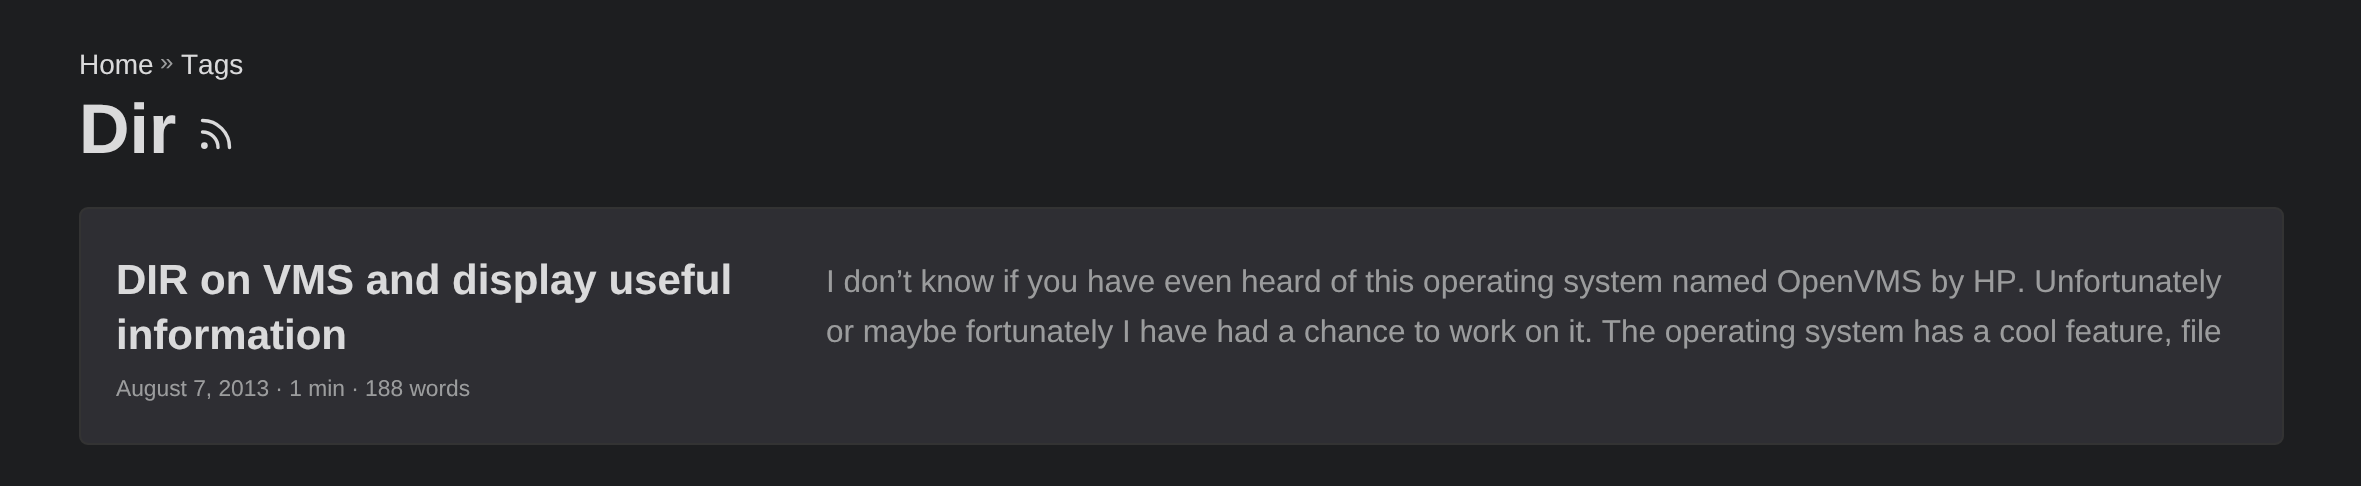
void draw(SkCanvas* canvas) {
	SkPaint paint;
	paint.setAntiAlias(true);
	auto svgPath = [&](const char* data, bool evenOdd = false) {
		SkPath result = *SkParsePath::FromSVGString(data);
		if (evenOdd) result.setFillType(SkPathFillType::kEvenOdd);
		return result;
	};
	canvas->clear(0xff1d1e20);
	SkFont f1(fontMgr->matchFamilyStyle("Liberation Sans", SkFontStyle::Normal()), 28);
	f1.setSubpixel(true);
	paint.setColor(0xffdadadb);
	canvas->drawString("Home", 79, 74, f1, paint);
	SkFont f2(fontMgr->matchFamilyStyle("Liberation Sans", SkFontStyle::Normal()), 24);
	f2.setSubpixel(true);
	paint.setColor(0xff9b9c9d);
	canvas->drawString("»", 160, 70, f2, paint);
	paint.setColor(0xffdadadb);
	canvas->drawString("Tags", 181, 74, f1, paint);
	SkFont f3(fontMgr->matchFamilyStyle("Liberation Sans", SkFontStyle::Bold()), 70);
	f3.setSubpixel(true);
	canvas->drawString("Dir", 79, 153, f3, paint);
	paint.setStroke(true);
	paint.setStrokeWidth(3.4);
	paint.setStrokeCap(SkPaint::kRound_Cap);
	paint.setStrokeJoin(SkPaint::kRound_Join);
	canvas->drawPath(svgPath("M202.5 132C211 132 218 139 218 147.5M202.5 120.5C217.5 120.5 229.5 132.5 229.5 147.5"), paint);
	paint.setStrokeCap(SkPaint::kButt_Cap);
	paint.setStrokeJoin(SkPaint::kMiter_Join);
	canvas->drawCircle(204.4, 145.6, 1.7, paint);
	paint.setStroke(false);
	paint.setColor(0xff2e2e33);
	canvas->drawRoundRect(SkRect::MakeXYWH(80, 208, 2203, 236), 8, 8, paint);
	paint.setStroke(true);
	paint.setStrokeWidth(2);
	paint.setColor(0xff333333);
	canvas->drawRoundRect(SkRect::MakeXYWH(80, 208, 2203, 236), 8, 8, paint);
	SkFont f4(fontMgr->matchFamilyStyle("Liberation Sans", SkFontStyle::Bold()), 42);
	f4.setSubpixel(true);
	paint.setStroke(false);
	paint.setColor(0xffdadadb);
	canvas->drawString("DIR on VMS and display useful", 116, 294, f4, paint);
	canvas->drawString("information", 116, 349, f4, paint);
	SkFont f5(fontMgr->matchFamilyStyle("Liberation Sans", SkFontStyle::Normal()), 31.5);
	f5.setSubpixel(true);
	paint.setColor(0xff9b9c9d);
	canvas->drawString("I don’t know if you have even heard of this operating system named OpenVMS by HP. Unfortunately", 826, 292, f5, paint);
	canvas->drawString("or maybe fortunately I have had a chance to work on it. The operating system has a cool feature, file", 826, 342, f5, paint);
	SkFont f6(fontMgr->matchFamilyStyle("Liberation Sans", SkFontStyle::Normal()), 22.75);
	f6.setSubpixel(true);
	canvas->drawString("August 7, 2013 · 1 min · 188 words", 116, 396, f6, paint);
}
